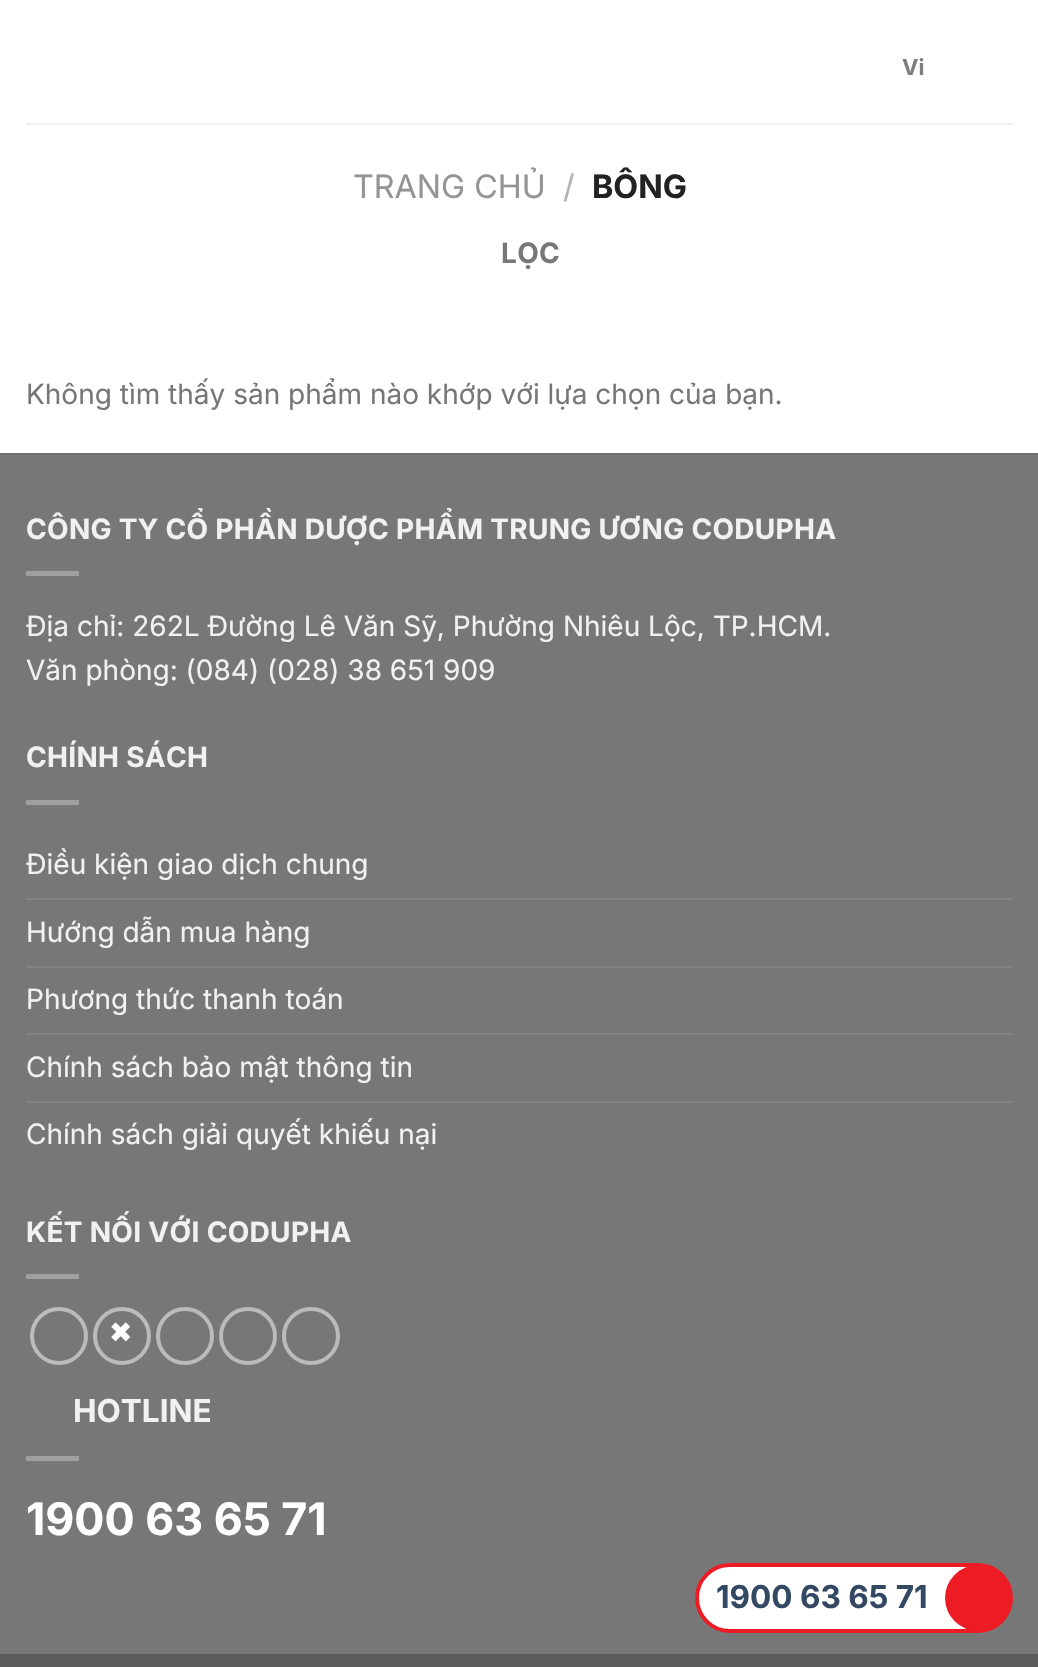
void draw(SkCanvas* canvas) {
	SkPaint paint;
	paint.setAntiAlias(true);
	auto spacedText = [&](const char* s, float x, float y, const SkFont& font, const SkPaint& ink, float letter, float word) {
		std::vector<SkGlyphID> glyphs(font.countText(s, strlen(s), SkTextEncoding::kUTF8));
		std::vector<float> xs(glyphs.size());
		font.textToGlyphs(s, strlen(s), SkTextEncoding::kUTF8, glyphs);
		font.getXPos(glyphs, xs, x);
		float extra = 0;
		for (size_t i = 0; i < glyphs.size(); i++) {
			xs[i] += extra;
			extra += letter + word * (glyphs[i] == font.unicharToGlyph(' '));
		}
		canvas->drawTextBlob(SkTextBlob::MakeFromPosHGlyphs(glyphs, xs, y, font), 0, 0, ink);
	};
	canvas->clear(0xffffffff);
	SkFont f1(fontMgr->matchFamilyStyle("Inter", SkFontStyle::Bold()), 22);
	f1.setSubpixel(true);
	paint.setColor(0xff7d7d7d);
	canvas->drawString("Vi", 902, 75, f1, paint);
	paint.setColor(0xfff1f1f1);
	canvas->drawRect(SkRect::MakeXYWH(26, 123, 987, 2), paint);
	SkFont f2(fontMgr->matchFamilyStyle("Inter", SkFontStyle::Normal()), 32.25);
	f2.setSubpixel(true);
	paint.setColor(0xff949494);
	canvas->drawString("TRANG CHỦ", 353, 198, f2, paint);
	paint.setColor(0xffb2b2b2);
	canvas->drawString("/", 563, 198, f2, paint);
	SkFont f3(fontMgr->matchFamilyStyle("Inter", SkFontStyle::Bold()), 32.25);
	f3.setSubpixel(true);
	paint.setColor(0xff222222);
	canvas->drawString("BÔNG", 592, 198, f3, paint);
	SkFont f4(fontMgr->matchFamilyStyle("Inter", SkFontStyle::Bold()), 28);
	f4.setSubpixel(true);
	paint.setColor(0xff777777);
	spacedText("LỌC", 501, 263, f4, paint, 0.3, 0);
	SkFont f5(fontMgr->matchFamilyStyle("Inter", SkFontStyle::Normal()), 28);
	f5.setSubpixel(true);
	canvas->drawString("Không tìm thấy sản phẩm nào khớp với lựa chọn của bạn.", 26, 404, f5, paint);
	canvas->drawRect(SkRect::MakeXYWH(0, 455, 1038, 1199), paint);
	paint.setColor(0xff717171);
	canvas->drawRect(SkRect::MakeXYWH(0, 453, 1038, 2), paint);
	paint.setColor(0xfff1f1f1);
	spacedText("CÔNG TY CỔ PHẦN DƯỢC PHẨM TRUNG ƯƠNG CODUPHA", 26, 539, f4, paint, 0.3, 0);
	paint.setColor(0xffa0a0a0);
	canvas->drawRect(SkRect::MakeXYWH(26, 571, 53, 5), paint);
	paint.setColor(0xfff1f1f1);
	canvas->drawString("Địa chỉ: 262L Đường Lê Văn Sỹ, Phường Nhiêu Lộc, TP.HCM.", 26, 636, f5, paint);
	canvas->drawString("Văn phòng: (084) (028) 38 651 909", 26, 680, f5, paint);
	spacedText("CHÍNH SÁCH", 26, 767, f4, paint, 0.3, 0);
	paint.setColor(0xffa0a0a0);
	canvas->drawRect(SkRect::MakeXYWH(26, 800, 53, 5), paint);
	paint.setColor(0xfff1f1f1);
	canvas->drawString("Điều kiện giao dịch chung", 26, 874, f5, paint);
	paint.setColor(0xff828282);
	canvas->drawRect(SkRect::MakeXYWH(26, 898, 987, 2), paint);
	paint.setColor(0xfff1f1f1);
	canvas->drawString("Hướng dẫn mua hàng", 26, 942, f5, paint);
	paint.setColor(0xff828282);
	canvas->drawRect(SkRect::MakeXYWH(26, 966, 987, 2), paint);
	paint.setColor(0xfff1f1f1);
	canvas->drawString("Phương thức thanh toán", 26, 1009, f5, paint);
	paint.setColor(0xff828282);
	canvas->drawRect(SkRect::MakeXYWH(26, 1033, 987, 2), paint);
	paint.setColor(0xfff1f1f1);
	canvas->drawString("Chính sách bảo mật thông tin", 26, 1077, f5, paint);
	paint.setColor(0xff828282);
	canvas->drawRect(SkRect::MakeXYWH(26, 1101, 987, 2), paint);
	paint.setColor(0xfff1f1f1);
	canvas->drawString("Chính sách giải quyết khiếu nại", 26, 1144, f5, paint);
	spacedText("KẾT NỐI VỚI CODUPHA", 26, 1242, f4, paint, 0.3, 0);
	paint.setColor(0xffa0a0a0);
	canvas->drawRect(SkRect::MakeXYWH(26, 1274, 53, 5), paint);
	paint.setStroke(true);
	paint.setStrokeWidth(4);
	paint.setColor(0xffbbbbbb);
	canvas->drawCircle(59, 1336, 27, paint);
	canvas->drawCircle(122, 1336, 27, paint);
	SkFont f6(fontMgr->matchFamilyStyle("DejaVu Sans", SkFontStyle::Normal()), 28);
	f6.setSubpixel(true);
	paint.setStroke(false);
	paint.setColor(0xffffffff);
	spacedText("✖", 109, 1342, f6, paint, 1, 0);
	paint.setStroke(true);
	paint.setColor(0xffbbbbbb);
	canvas->drawCircle(185, 1336, 27, paint);
	canvas->drawCircle(248, 1336, 27, paint);
	canvas->drawCircle(311, 1336, 27, paint);
	SkFont f7(fontMgr->matchFamilyStyle("Inter", SkFontStyle::Bold()), 31.5);
	f7.setSubpixel(true);
	paint.setStroke(false);
	paint.setColor(0xfff1f1f1);
	canvas->drawString("HOTLINE", 73, 1422, f7, paint);
	paint.setColor(0xffa0a0a0);
	canvas->drawRect(SkRect::MakeXYWH(26, 1456, 53, 5), paint);
	SkFont f8(fontMgr->matchFamilyStyle("Inter", SkFontStyle::Bold()), 44.75);
	f8.setSubpixel(true);
	paint.setColor(0xffffffff);
	canvas->drawString("1900 63 65 71", 26, 1535, f8, paint);
	canvas->drawRoundRect(SkRect::MakeXYWH(697, 1565, 314, 66), 33, 33, paint);
	paint.setStroke(true);
	paint.setColor(0xffed1c24);
	canvas->drawRoundRect(SkRect::MakeXYWH(697, 1565, 314, 66), 33, 33, paint);
	paint.setStroke(false);
	paint.setColor(0xff334862);
	canvas->drawString("1900 63 65 71", 716, 1608, f7, paint);
	paint.setColor(0xffed1c24);
	canvas->drawRoundRect(SkRect::MakeXYWH(945, 1565, 67, 66), 33, 33, paint);
	paint.setColor(0xff5b5b5b);
	canvas->drawRect(SkRect::MakeXYWH(0, 1654, 1038, 13), paint);
}
